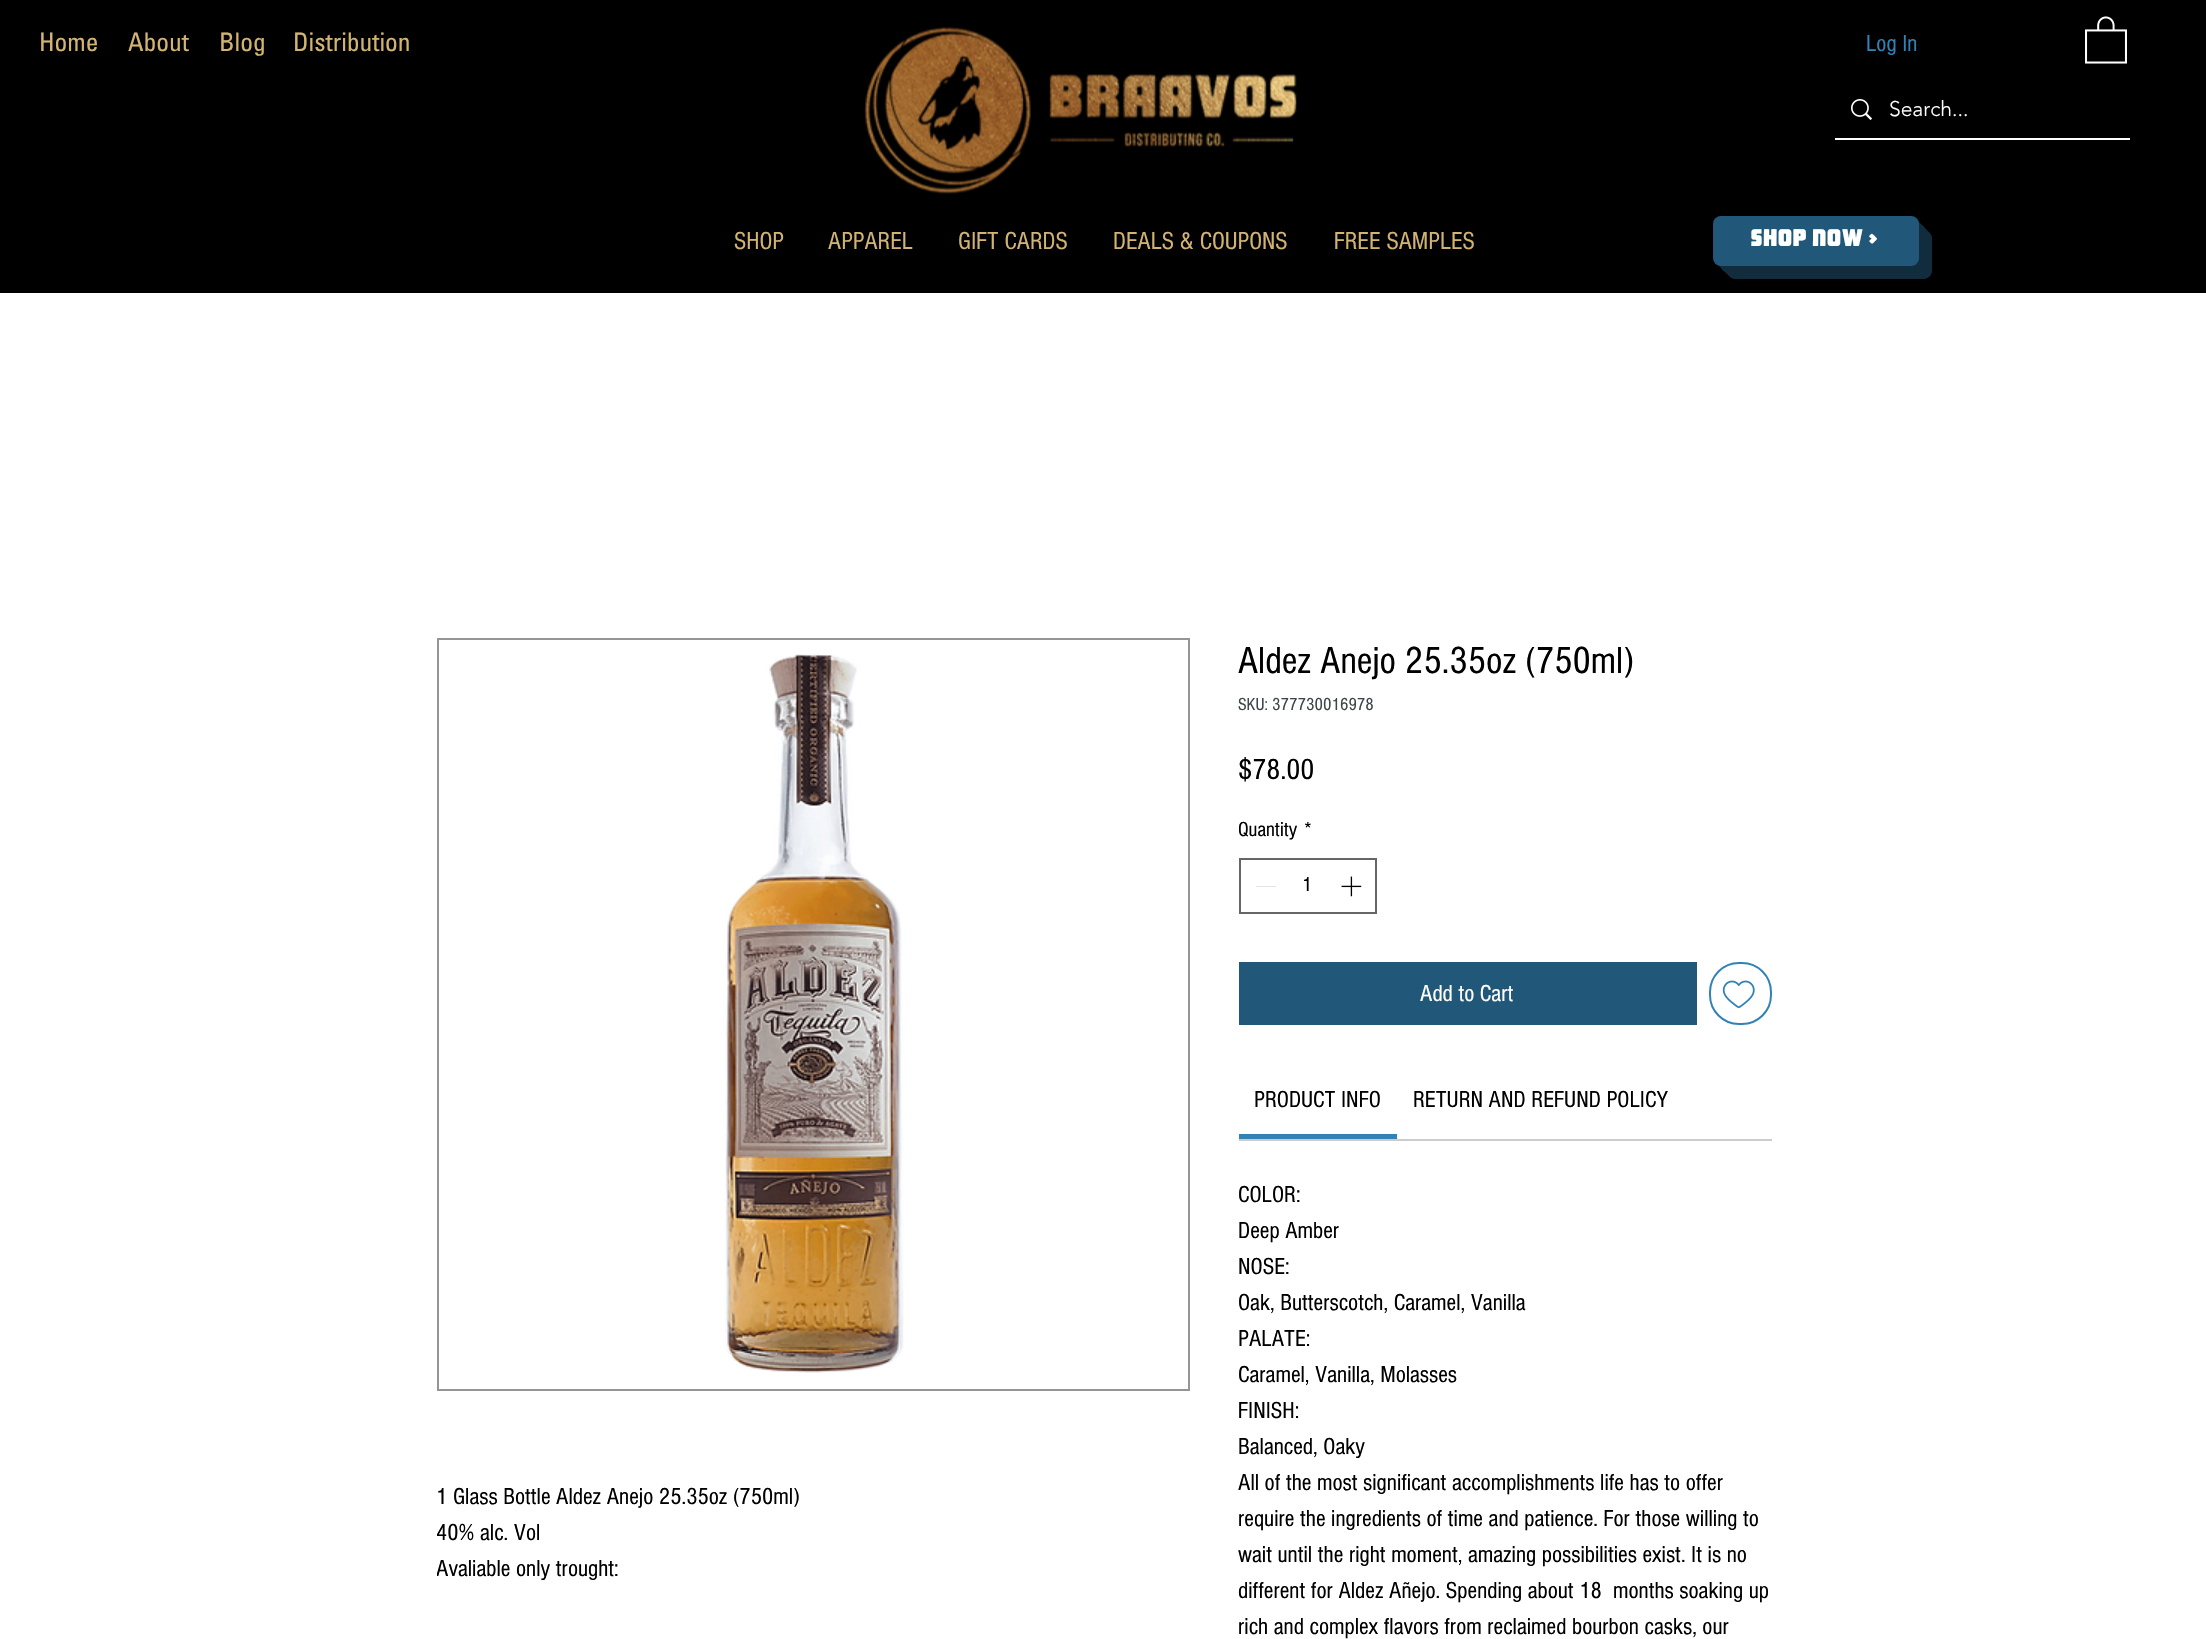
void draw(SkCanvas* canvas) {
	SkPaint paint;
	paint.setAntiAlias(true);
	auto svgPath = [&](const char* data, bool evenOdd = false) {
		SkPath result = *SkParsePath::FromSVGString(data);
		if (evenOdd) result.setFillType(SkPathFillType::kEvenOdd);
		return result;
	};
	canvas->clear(0xffffffff);
	paint.setColor(0xff000000);
	canvas->drawRect(SkRect::MakeXYWH(0, 0, 2206, 293), paint);
	SkFont f1(fontMgr->matchFamilyStyle("Univers", SkFontStyle::Normal()), 25.5);
	f1.setSubpixel(true);
	paint.setColor(0xffd2b372);
	canvas->drawString("Home", 39, 51, f1, paint);
	canvas->drawString("About", 128, 51, f1, paint);
	canvas->drawString("Blog", 219, 51, f1, paint);
	canvas->drawString("Distribution", 293, 51, f1, paint);
	SkFont f2(fontMgr->matchFamilyStyle("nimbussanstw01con", SkFontStyle::Normal()), 24);
	f2.setSubpixel(true);
	paint.setColor(0xff3182b5);
	canvas->drawString("Log In", 1866, 51, f2, paint);
	canvas->drawImageRect(SkImages::DeferredFromEncodedData(SkData::MakeFromFileName("img1.png")), SkRect::MakeXYWH(2085, 16, 42, 48), SkSamplingOptions());
	paint.setColor(0xffffffff);
	canvas->drawRect(SkRect::MakeXYWH(1835, 138, 295, 2), paint);
	canvas->drawImageRect(SkImages::DeferredFromEncodedData(SkData::MakeFromFileName("img2.png")), SkRect::MakeXYWH(1851, 99, 21, 21), SkSamplingOptions());
	SkFont f3(fontMgr->matchFamilyStyle("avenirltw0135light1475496", SkFontStyle(300, SkFontStyle::kNormal_Width, SkFontStyle::kUpright_Slant)), 21);
	f3.setSubpixel(true);
	canvas->drawString("Search...", 1889, 116, f3, paint);
	canvas->drawImageRect(SkImages::DeferredFromEncodedData(SkData::MakeFromFileName("img3.png")), SkRect::MakeXYWH(864, 26, 433, 168), SkSamplingOptions());
	SkFont f4(fontMgr->matchFamilyStyle("nimbussanstw01con", SkFontStyle::Normal()), 25.5);
	f4.setSubpixel(true);
	paint.setColor(0xffd2b372);
	canvas->drawString("SHOP", 734, 249, f4, paint);
	canvas->drawString("APPAREL", 828, 249, f4, paint);
	canvas->drawString("GIFT CARDS", 958, 249, f4, paint);
	canvas->drawString("DEALS & COUPONS", 1113, 249, f4, paint);
	canvas->drawString("FREE SAMPLES", 1334, 249, f4, paint);
	paint.setColor(0xff112c3d);
	canvas->drawPath(svgPath("M1727 266V271C1727 275 1731 279 1735 279H1924C1928 279 1932 275 1932 271V238C1932 234 1928 230 1924 230H1918V258C1918 262 1915 266 1911 266Z"), paint);
	canvas->drawPath(svgPath("M1724 266V268C1724 272 1728 276 1732 276H1921C1925 276 1929 272 1929 268V235C1929 231 1925 227 1921 227H1918V258C1918 262 1915 266 1911 266Z"), paint);
	canvas->drawPath(svgPath("M1721 266C1721 270 1725 273 1729 273H1918C1922 273 1926 269 1926 265V232C1926 228 1923 224 1918 224V258C1918 262 1915 266 1911 266Z"), paint);
	canvas->drawPath(svgPath("M1719 265C1720 268 1723 270 1726 270H1915C1919 270 1923 266 1923 262V229C1923 226 1921 223 1918 222V246C1918 253 1921 265 1911 266Z"), paint);
	canvas->drawPath(svgPath("M1718 265C1719 266 1721 267 1723 267H1912C1916 267 1920 263 1920 259V226C1920 224 1919 222 1918 221V224V258C1918 262 1915 266 1911 266H1720Z"), paint);
	paint.setColor(0xff215779);
	canvas->drawRoundRect(SkRect::MakeXYWH(1713, 216, 206, 50), 8, 8, paint);
	SkFont f5(fontMgr->matchFamilyStyle("Pacifico", SkFontStyle::Normal()), 24);
	f5.setSubpixel(true);
	paint.setColor(0xffffffff);
	canvas->drawString("SHOP NOW >", 1751, 246, f5, paint);
	paint.setStroke(true);
	paint.setStrokeWidth(2);
	paint.setColor(0xff959596);
	canvas->drawRect(SkRect::MakeXYWH(438, 639, 751, 751), paint);
	canvas->drawImageRect(SkImages::DeferredFromEncodedData(SkData::MakeFromFileName("img4.png")), SkRect::MakeXYWH(725, 654, 179, 719), SkSamplingOptions());
	paint.setStroke(false);
	paint.setColor(0xff000000);
	canvas->drawString("1 Glass Bottle Aldez Anejo 25.35oz (750ml)", 436, 1504, f2, paint);
	canvas->drawString("40% alc. Vol", 436, 1540, f2, paint);
	canvas->save();
	canvas->clipRect(SkRect::MakeXYWH(437, 1478, 363, 108));
	canvas->drawString("Avaliable only trought:", 436, 1576, f2, paint);
	canvas->restore();
	SkFont f6(fontMgr->matchFamilyStyle("nimbussanstw01con", SkFontStyle::Normal()), 39);
	f6.setSubpixel(true);
	canvas->drawString("Aldez Anejo 25.35oz (750ml)", 1238, 673, f6, paint);
	SkFont f7(fontMgr->matchFamilyStyle("nimbussanstw01con", SkFontStyle::Normal()), 18);
	f7.setSubpixel(true);
	paint.setColor(0xff3c4547);
	canvas->drawString("SKU: 377730016978", 1238, 710, f7, paint);
	SkFont f8(fontMgr->matchFamilyStyle("nimbussanstw01con", SkFontStyle::Normal()), 30);
	f8.setSubpixel(true);
	paint.setColor(0xff000000);
	canvas->drawString("$78.00", 1238, 779, f8, paint);
	SkFont f9(fontMgr->matchFamilyStyle("nimbussanstw01con", SkFontStyle::Normal()), 21);
	f9.setSubpixel(true);
	canvas->drawString("Quantity", 1238, 836, f9, paint);
	canvas->drawString("*", 1304, 836, f9, paint);
	paint.setStroke(true);
	paint.setColor(0xff666666);
	canvas->drawRect(SkRect::MakeXYWH(1240, 859, 136, 54), paint);
	paint.setStroke(false);
	paint.setColor(0xffe3e3e3);
	canvas->drawRect(SkRect::MakeXYWH(1256, 886, 20, 1), paint);
	paint.setColor(0xff000000);
	canvas->drawString("1", 1302, 891, f9, paint);
	canvas->drawImageRect(SkImages::DeferredFromEncodedData(SkData::MakeFromFileName("img5.png")), SkRect::MakeXYWH(1341, 876, 21, 21), SkSamplingOptions());
	paint.setColor(0xff215779);
	canvas->drawRect(SkRect::MakeXYWH(1239, 962, 458, 63), paint);
	paint.setColor(0xffffffff);
	canvas->drawString("Add to Cart", 1420, 1001, f2, paint);
	paint.setStroke(true);
	paint.setColor(0xff3182b5);
	canvas->drawRoundRect(SkRect::MakeXYWH(1710, 963, 61, 61), 29, 29, paint);
	canvas->drawImageRect(SkImages::DeferredFromEncodedData(SkData::MakeFromFileName("img6.png")), SkRect::MakeXYWH(1722, 980, 33, 29), SkSamplingOptions());
	paint.setStroke(false);
	paint.setColor(0xffcccccc);
	canvas->drawRect(SkRect::MakeXYWH(1239, 1139, 533, 2), paint);
	paint.setColor(0xff3182b5);
	canvas->drawRect(SkRect::MakeXYWH(1239, 1134, 158, 5), paint);
	paint.setColor(0xff000000);
	canvas->drawString("PRODUCT INFO", 1254, 1107, f2, paint);
	canvas->drawString("RETURN AND REFUND POLICY", 1413, 1107, f2, paint);
	canvas->drawString("COLOR:", 1238, 1202, f2, paint);
	canvas->drawString("Deep Amber", 1238, 1238, f2, paint);
	canvas->drawString("NOSE:", 1238, 1274, f2, paint);
	canvas->drawString("Oak, Butterscotch, Caramel, Vanilla", 1238, 1310, f2, paint);
	canvas->drawString("PALATE:", 1238, 1346, f2, paint);
	canvas->drawString("Caramel, Vanilla, Molasses", 1238, 1382, f2, paint);
	canvas->drawString("FINISH:", 1238, 1418, f2, paint);
	canvas->drawString("Balanced, Oaky", 1238, 1454, f2, paint);
	canvas->drawString("All of the most significant accomplishments life has to offer", 1238, 1490, f2, paint);
	canvas->drawString("require the ingredients of time and patience. For those willing to", 1238, 1526, f2, paint);
	canvas->drawString("wait until the right moment, amazing possibilities exist. It is no", 1238, 1562, f2, paint);
	canvas->drawString("different for Aldez Añejo. Spending about 18  months soaking up", 1238, 1598, f2, paint);
	canvas->drawString("rich and complex flavors from reclaimed bourbon casks, our", 1238, 1634, f2, paint);
}
